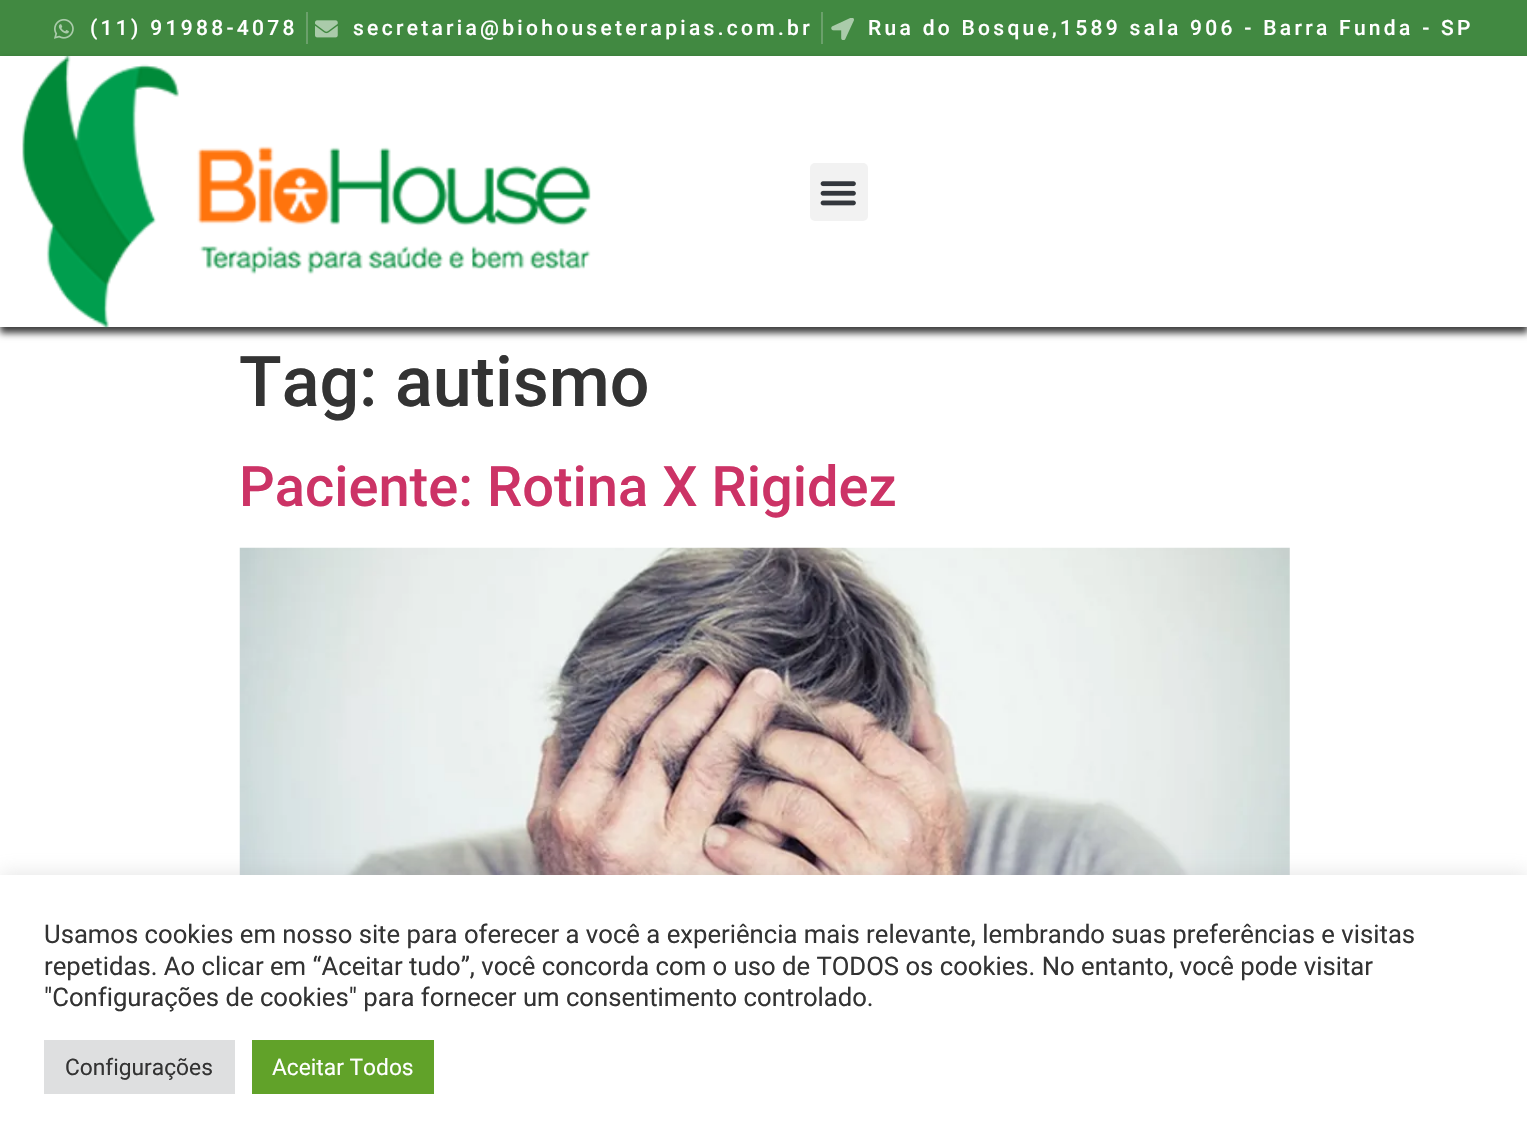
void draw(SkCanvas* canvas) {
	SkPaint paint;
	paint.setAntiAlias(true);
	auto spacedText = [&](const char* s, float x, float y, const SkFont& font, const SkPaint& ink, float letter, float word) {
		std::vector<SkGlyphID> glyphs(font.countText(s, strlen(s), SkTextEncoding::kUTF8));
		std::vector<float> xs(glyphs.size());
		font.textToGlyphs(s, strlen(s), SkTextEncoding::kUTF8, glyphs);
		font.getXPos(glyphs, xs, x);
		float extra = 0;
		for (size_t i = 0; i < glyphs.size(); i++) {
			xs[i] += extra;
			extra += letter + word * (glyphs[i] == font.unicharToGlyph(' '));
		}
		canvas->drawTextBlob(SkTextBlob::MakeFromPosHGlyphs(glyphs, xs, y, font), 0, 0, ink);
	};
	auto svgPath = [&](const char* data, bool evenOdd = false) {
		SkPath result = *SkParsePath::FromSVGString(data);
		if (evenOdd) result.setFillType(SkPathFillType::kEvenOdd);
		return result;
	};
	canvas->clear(0xffffffff);
	paint.setColor(0xff418941);
	canvas->drawRect(SkRect::MakeXYWH(0, 0, 1527, 56), paint);
	canvas->drawImageRect(SkImages::DeferredFromEncodedData(SkData::MakeFromFileName("img1.png")), SkRect::MakeXYWH(54, 18, 20, 21), SkSamplingOptions());
	SkFont f1(fontMgr->matchFamilyStyle("Roboto", SkFontStyle(500, SkFontStyle::kNormal_Width, SkFontStyle::kUpright_Slant)), 21);
	f1.setSubpixel(true);
	paint.setColor(0xffffffff);
	spacedText("(11) 91988-4078", 90, 35, f1, paint, 3.3, 0);
	paint.setColor(0xff6ba06b);
	canvas->drawRect(SkRect::MakeXYWH(306, 12, 2, 32), paint);
	canvas->drawImageRect(SkImages::DeferredFromEncodedData(SkData::MakeFromFileName("img2.png")), SkRect::MakeXYWH(315, 20, 23, 18), SkSamplingOptions());
	paint.setColor(0xffffffff);
	spacedText("secretaria@biohouseterapias.com.br", 353, 35, f1, paint, 3.3, 0);
	paint.setColor(0xff6ba06b);
	canvas->drawRect(SkRect::MakeXYWH(821, 12, 2, 32), paint);
	canvas->drawImageRect(SkImages::DeferredFromEncodedData(SkData::MakeFromFileName("img3.png")), SkRect::MakeXYWH(831, 18, 23, 22), SkSamplingOptions());
	paint.setColor(0xffffffff);
	spacedText("Rua do Bosque,1589 sala 906 - Barra Funda - SP", 868, 35, f1, paint, 3.3, 0);
	canvas->save();
	canvas->clipPath(svgPath("M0 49H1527V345H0ZM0 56H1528V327H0Z", true), true);
	paint.setColor(0xc2000000);
	paint.setMaskFilter(SkMaskFilter::MakeBlur(kNormal_SkBlurStyle, 3.5));
	canvas->drawRect(SkRect::MakeXYWH(0, 61, 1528, 272), paint);
	paint.setMaskFilter(nullptr);
	canvas->restore();
	canvas->drawImageRect(SkImages::DeferredFromEncodedData(SkData::MakeFromFileName("img4.png")), SkRect::MakeXYWH(22, 56, 569, 272), SkSamplingOptions());
	paint.setColor(0xfff2f2f2);
	canvas->drawRoundRect(SkRect::MakeXYWH(810, 163, 58, 58), 5, 5, paint);
	canvas->drawImageRect(SkImages::DeferredFromEncodedData(SkData::MakeFromFileName("img5.png")), SkRect::MakeXYWH(820, 181, 36, 25), SkSamplingOptions());
	SkFont f2(fontMgr->matchFamilyStyle("Roboto", SkFontStyle(500, SkFontStyle::kNormal_Width, SkFontStyle::kUpright_Slant)), 70);
	f2.setSubpixel(true);
	paint.setColor(0xff333333);
	canvas->drawString("Tag: autismo", 239, 406, f2, paint);
	SkFont f3(fontMgr->matchFamilyStyle("Roboto", SkFontStyle(500, SkFontStyle::kNormal_Width, SkFontStyle::kUpright_Slant)), 56);
	f3.setSubpixel(true);
	paint.setColor(0xffcc3366);
	canvas->drawString("Paciente: Rotina X Rigidez", 239, 506, f3, paint);
	canvas->drawImageRect(SkImages::DeferredFromEncodedData(SkData::MakeFromFileName("img6.png")), SkRect::MakeXYWH(239, 547, 1051, 328), SkSamplingOptions());
	paint.setColor(0x4dacabab);
	paint.setMaskFilter(SkMaskFilter::MakeBlur(kNormal_SkBlurStyle, 9));
	canvas->drawRect(SkRect::MakeXYWH(0, 873, 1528, 272), paint);
	paint.setMaskFilter(nullptr);
	paint.setColor(0xffffffff);
	canvas->drawRect(SkRect::MakeXYWH(0, 875, 1527, 270), paint);
	SkFont f4(fontMgr->matchFamilyStyle("Roboto", SkFontStyle::Normal()), 25.67);
	f4.setSubpixel(true);
	paint.setColor(0xff333333);
	canvas->drawString("Usamos cookies em nosso site para oferecer a você a experiência mais relevante, lembrando suas preferências e visitas", 44, 943, f4, paint);
	canvas->drawString("repetidas. Ao clicar em “Aceitar tudo”, você concorda com o uso de TODOS os cookies. No entanto, você pode visitar", 44, 975, f4, paint);
	canvas->drawString("\"Configurações de cookies\" para fornecer um consentimento controlado.", 44, 1006, f4, paint);
	paint.setColor(0xffdedfe0);
	canvas->drawRect(SkRect::MakeXYWH(44, 1040, 191, 54), paint);
	SkFont f5(fontMgr->matchFamilyStyle("Roboto", SkFontStyle::Normal()), 22.75);
	f5.setSubpixel(true);
	paint.setColor(0xff333333);
	canvas->drawString("Configurações", 65, 1075, f5, paint);
	paint.setColor(0xff61a229);
	canvas->drawRect(SkRect::MakeXYWH(252, 1040, 182, 54), paint);
	paint.setColor(0xffffffff);
	canvas->drawString("Aceitar Todos", 272, 1075, f5, paint);
}
